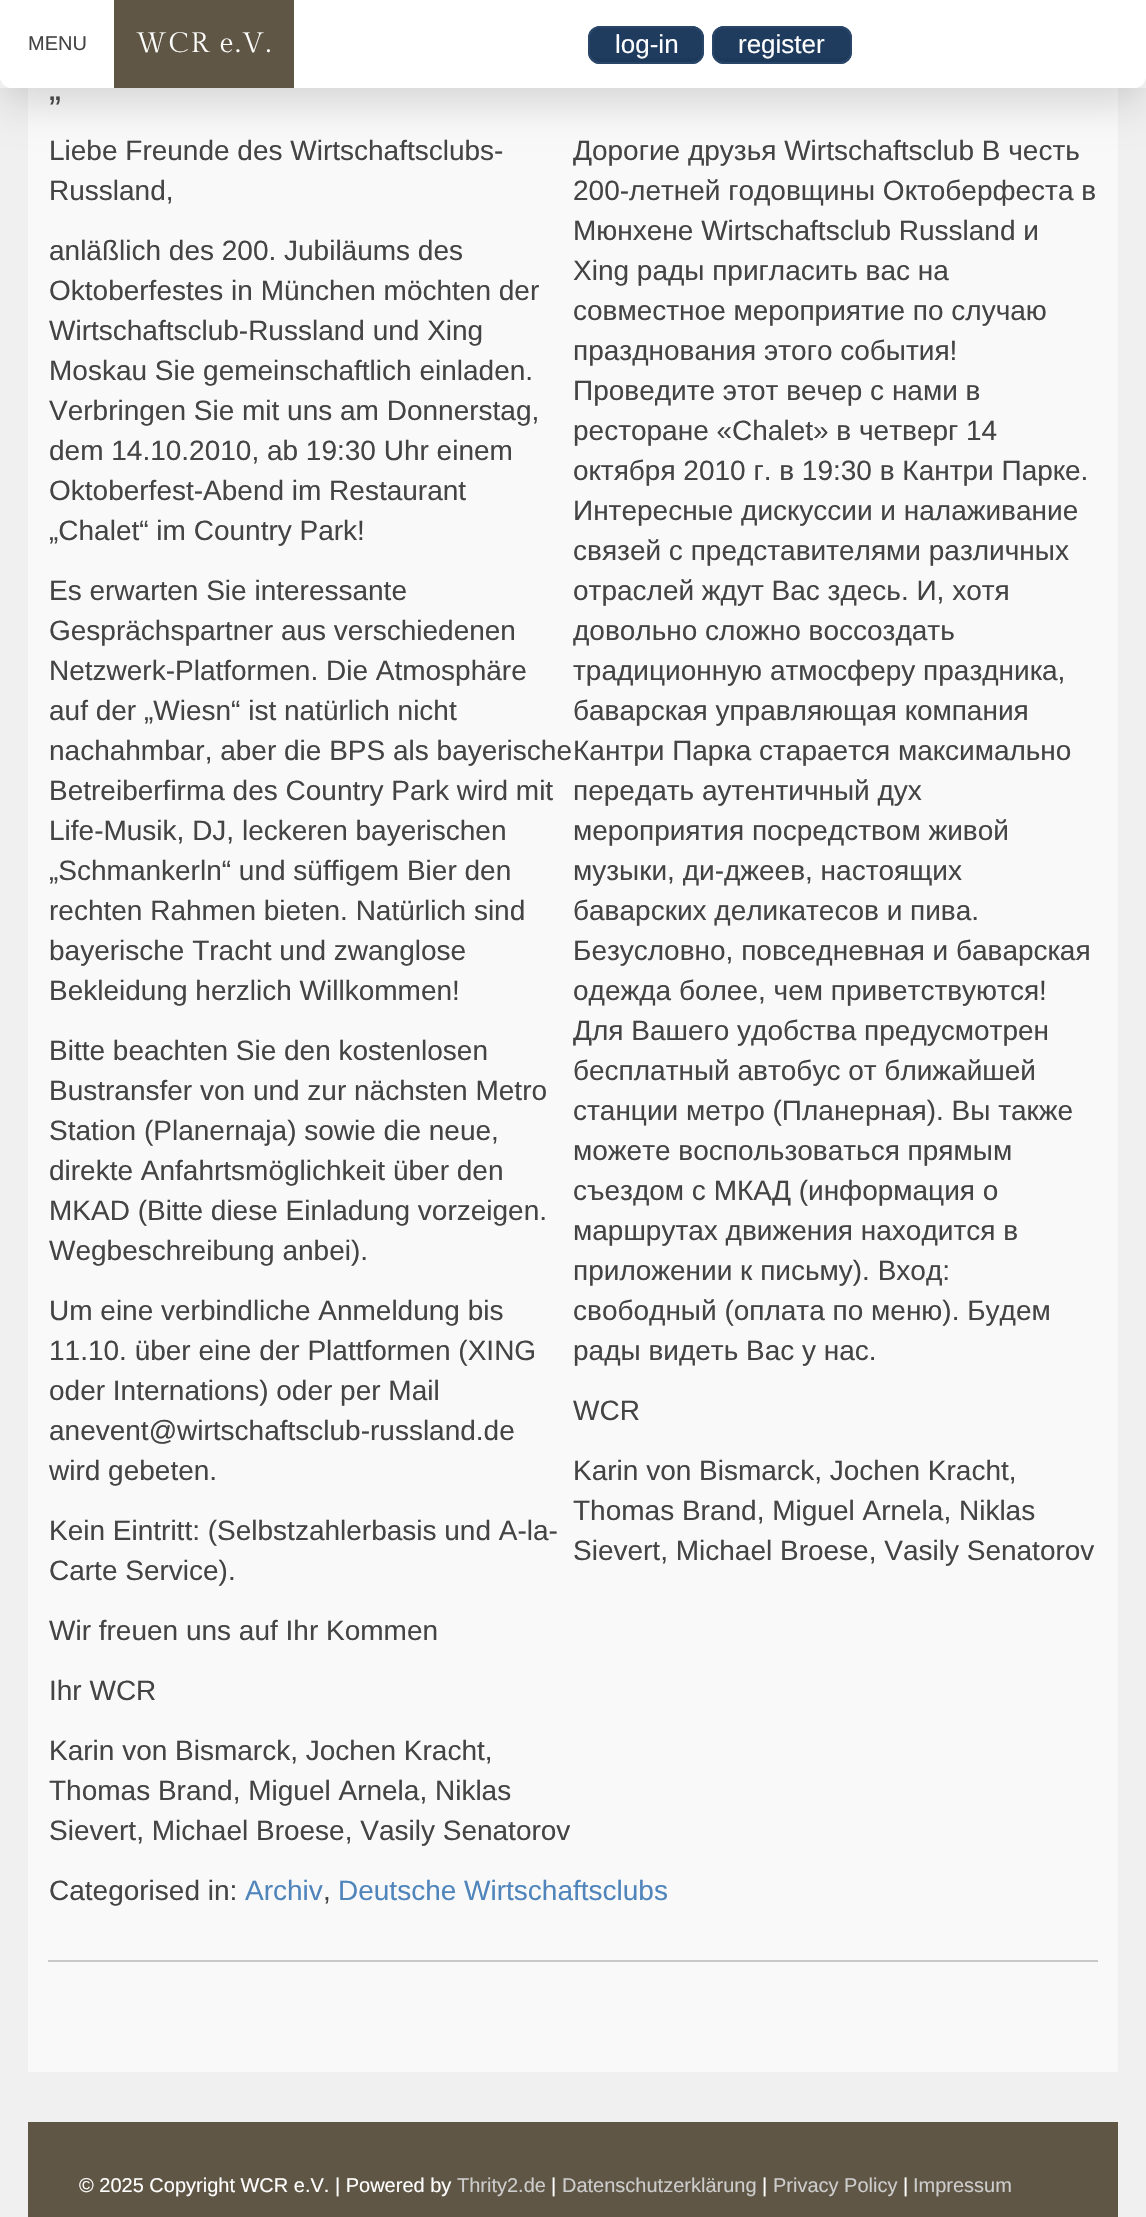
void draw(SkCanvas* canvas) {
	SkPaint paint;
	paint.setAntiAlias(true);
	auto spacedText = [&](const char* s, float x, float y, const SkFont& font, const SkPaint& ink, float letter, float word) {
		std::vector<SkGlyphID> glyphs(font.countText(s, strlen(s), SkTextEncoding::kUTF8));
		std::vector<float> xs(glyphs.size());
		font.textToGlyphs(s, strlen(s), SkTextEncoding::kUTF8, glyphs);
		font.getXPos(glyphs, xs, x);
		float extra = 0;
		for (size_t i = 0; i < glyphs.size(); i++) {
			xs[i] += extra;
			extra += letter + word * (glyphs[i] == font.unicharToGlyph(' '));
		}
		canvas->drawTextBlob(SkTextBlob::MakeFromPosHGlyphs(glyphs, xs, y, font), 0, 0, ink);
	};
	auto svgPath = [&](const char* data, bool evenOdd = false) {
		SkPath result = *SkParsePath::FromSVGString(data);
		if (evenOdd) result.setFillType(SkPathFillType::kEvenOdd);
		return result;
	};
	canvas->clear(0xfff0f0f0);
	paint.setColor(0xffffffff);
	canvas->drawRect(SkRect::MakeXYWH(0, 0, 1146, 88), paint);
	paint.setColor(0xfff9f9f9);
	canvas->drawRect(SkRect::MakeXYWH(28, 88, 1090, 1984), paint);
	canvas->save();
	canvas->clipPath(svgPath("M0 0H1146V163H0ZM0 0H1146V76C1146 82.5 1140.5 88 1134 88H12C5.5 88 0 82.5 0 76Z", true), true);
	paint.setColor(0x26000000);
	paint.setMaskFilter(SkMaskFilter::MakeBlur(kNormal_SkBlurStyle, 20));
	canvas->drawRoundRect(SkRect::MakeXYWH(0, 14, 1146, 88), 12, 12, paint);
	paint.setMaskFilter(nullptr);
	canvas->restore();
	paint.setColor(0xfaffffff);
	canvas->drawPath(svgPath("M0 0H1146V76C1146 82.5 1140.5 88 1134 88H12C5.5 88 0 82.5 0 76Z"), paint);
	SkFont f1(fontMgr->matchFamilyStyle("Liberation Sans", SkFontStyle::Normal()), 20);
	f1.setSubpixel(true);
	paint.setColor(0xff444444);
	canvas->drawString("MENU", 28, 50, f1, paint);
	paint.setColor(0xff5f5645);
	canvas->drawRect(SkRect::MakeXYWH(114, 0, 180, 88), paint);
	SkFont f2(fontMgr->matchFamilyStyle("Gilda Display", SkFontStyle::Normal()), 28);
	f2.setSubpixel(true);
	paint.setColor(0xffffffff);
	spacedText("WCR e.V.", 136, 52, f2, paint, 2, 0);
	paint.setColor(0xff1f3c5f);
	canvas->drawRoundRect(SkRect::MakeXYWH(588, 26, 116, 38), 12, 12, paint);
	paint.setColor(0xff1d395a);
	canvas->drawPath(svgPath("M590 48C590 65 600 62 615 62H677C692 62 702 65 702 48C702 54 698 58 692 58H600C594 58 590 54 590 48Z"), paint);
	paint.setStroke(true);
	paint.setStrokeWidth(2);
	paint.setColor(0xff294669);
	canvas->drawRoundRect(SkRect::MakeXYWH(589, 27, 114, 36), 11, 11, paint);
	SkFont f3(fontMgr->matchFamilyStyle("Liberation Sans", SkFontStyle::Normal()), 26);
	f3.setSubpixel(true);
	paint.setStroke(false);
	paint.setColor(0xffffffff);
	canvas->drawString("log-in", 615, 53, f3, paint);
	paint.setColor(0xff1f3c5f);
	canvas->drawRoundRect(SkRect::MakeXYWH(712, 26, 140, 38), 12, 12, paint);
	paint.setColor(0xff1d395a);
	canvas->drawPath(svgPath("M714 48V52C714 58 718 62 724 62H840C846 62 850 58 850 52V48C850 54 846 58 840 58H724C718 58 714 54 714 48Z"), paint);
	paint.setStroke(true);
	paint.setColor(0xff294669);
	canvas->drawRoundRect(SkRect::MakeXYWH(713, 27, 138, 36), 11, 11, paint);
	paint.setStroke(false);
	paint.setColor(0xffffffff);
	canvas->drawString("register", 738, 53, f3, paint);
	paint.setColor(0xffc8c8c8);
	canvas->drawRect(SkRect::MakeXYWH(48, 1960, 1050, 2), paint);
	SkFont f4(fontMgr->matchFamilyStyle("Liberation Sans", SkFontStyle::Normal()), 36);
	f4.setSubpixel(true);
	paint.setColor(0xff444444);
	canvas->drawString("„", 49, 100, f4, paint);
	SkFont f5(fontMgr->matchFamilyStyle("Liberation Sans", SkFontStyle::Normal()), 28);
	f5.setSubpixel(true);
	canvas->drawString("Liebe Freunde des Wirtschaftsclubs-", 49, 160, f5, paint);
	canvas->drawString("Russland,", 49, 200, f5, paint);
	canvas->drawString("anläßlich des 200. Jubiläums des", 49, 260, f5, paint);
	canvas->drawString("Oktoberfestes in München möchten der", 49, 300, f5, paint);
	canvas->drawString("Wirtschaftsclub-Russland und Xing", 49, 340, f5, paint);
	canvas->drawString("Moskau Sie gemeinschaftlich einladen.", 49, 380, f5, paint);
	canvas->drawString("Verbringen Sie mit uns am Donnerstag,", 49, 420, f5, paint);
	canvas->drawString("dem 14.10.2010, ab 19:30 Uhr einem", 49, 460, f5, paint);
	canvas->drawString("Oktoberfest-Abend im Restaurant", 49, 500, f5, paint);
	canvas->drawString("„Chalet“ im Country Park!", 49, 540, f5, paint);
	canvas->drawString("Es erwarten Sie interessante", 49, 600, f5, paint);
	canvas->drawString("Gesprächspartner aus verschiedenen", 49, 640, f5, paint);
	canvas->drawString("Netzwerk-Platformen. Die Atmosphäre", 49, 680, f5, paint);
	canvas->drawString("auf der „Wiesn“ ist natürlich nicht", 49, 720, f5, paint);
	canvas->drawString("nachahmbar, aber die BPS als bayerische", 49, 760, f5, paint);
	canvas->drawString("Betreiberfirma des Country Park wird mit", 49, 800, f5, paint);
	canvas->drawString("Life-Musik, DJ, leckeren bayerischen", 49, 840, f5, paint);
	canvas->drawString("„Schmankerln“ und süffigem Bier den", 49, 880, f5, paint);
	canvas->drawString("rechten Rahmen bieten. Natürlich sind", 49, 920, f5, paint);
	canvas->drawString("bayerische Tracht und zwanglose", 49, 960, f5, paint);
	canvas->drawString("Bekleidung herzlich Willkommen!", 49, 1000, f5, paint);
	canvas->drawString("Bitte beachten Sie den kostenlosen", 49, 1060, f5, paint);
	canvas->drawString("Bustransfer von und zur nächsten Metro", 49, 1100, f5, paint);
	canvas->drawString("Station (Planernaja) sowie die neue,", 49, 1140, f5, paint);
	canvas->drawString("direkte Anfahrtsmöglichkeit über den", 49, 1180, f5, paint);
	canvas->drawString("MKAD (Bitte diese Einladung vorzeigen.", 49, 1220, f5, paint);
	canvas->drawString("Wegbeschreibung anbei).", 49, 1260, f5, paint);
	canvas->drawString("Um eine verbindliche Anmeldung bis", 49, 1320, f5, paint);
	canvas->drawString("11.10. über eine der Plattformen (XING", 49, 1360, f5, paint);
	canvas->drawString("oder Internations) oder per Mail", 49, 1400, f5, paint);
	canvas->drawString("anevent@wirtschaftsclub-russland.de", 49, 1440, f5, paint);
	canvas->drawString("wird gebeten.", 49, 1480, f5, paint);
	canvas->drawString("Kein Eintritt: (Selbstzahlerbasis und A-la-", 49, 1540, f5, paint);
	canvas->drawString("Carte Service).", 49, 1580, f5, paint);
	canvas->drawString("Wir freuen uns auf Ihr Kommen", 49, 1640, f5, paint);
	canvas->drawString("Ihr WCR", 49, 1700, f5, paint);
	canvas->drawString("Karin von Bismarck, Jochen Kracht,", 49, 1760, f5, paint);
	canvas->drawString("Thomas Brand, Miguel Arnela, Niklas", 49, 1800, f5, paint);
	canvas->drawString("Sievert, Michael Broese, Vasily Senatorov", 49, 1840, f5, paint);
	canvas->drawString("Дорогие друзья Wirtschaftsclub В честь", 573, 160, f5, paint);
	canvas->drawString("200-летней годовщины Октоберфеста в", 573, 200, f5, paint);
	canvas->drawString("Мюнхене Wirtschaftsclub Russland и", 573, 240, f5, paint);
	canvas->drawString("Xing рады пригласить вас на", 573, 280, f5, paint);
	canvas->drawString("совместное мероприятие по случаю", 573, 320, f5, paint);
	canvas->drawString("празднования этого события!", 573, 360, f5, paint);
	canvas->drawString("Проведите этот вечер с нами в", 573, 400, f5, paint);
	canvas->drawString("ресторане «Chalet» в четверг 14", 573, 440, f5, paint);
	canvas->drawString("октября 2010 г. в 19:30 в Кантри Парке.", 573, 480, f5, paint);
	canvas->drawString("Интересные дискуссии и налаживание", 573, 520, f5, paint);
	canvas->drawString("связей с представителями различных", 573, 560, f5, paint);
	canvas->drawString("отраслей ждут Вас здесь. И, хотя", 573, 600, f5, paint);
	canvas->drawString("довольно сложно воссоздать", 573, 640, f5, paint);
	canvas->drawString("традиционную атмосферу праздника,", 573, 680, f5, paint);
	canvas->drawString("баварская управляющая компания", 573, 720, f5, paint);
	canvas->drawString("Кантри Парка старается максимально", 573, 760, f5, paint);
	canvas->drawString("передать аутентичный дух", 573, 800, f5, paint);
	canvas->drawString("мероприятия посредством живой", 573, 840, f5, paint);
	canvas->drawString("музыки, ди-джеев, настоящих", 573, 880, f5, paint);
	canvas->drawString("баварских деликатесов и пива.", 573, 920, f5, paint);
	canvas->drawString("Безусловно, повседневная и баварская", 573, 960, f5, paint);
	canvas->drawString("одежда более, чем приветствуются!", 573, 1000, f5, paint);
	canvas->drawString("Для Вашего удобства предусмотрен", 573, 1040, f5, paint);
	canvas->drawString("бесплатный автобус от ближайшей", 573, 1080, f5, paint);
	canvas->drawString("станции метро (Планерная). Вы также", 573, 1120, f5, paint);
	canvas->drawString("можете воспользоваться прямым", 573, 1160, f5, paint);
	canvas->drawString("съездом с МКАД (информация о", 573, 1200, f5, paint);
	canvas->drawString("маршрутах движения находится в", 573, 1240, f5, paint);
	canvas->drawString("приложении к письму). Вход:", 573, 1280, f5, paint);
	canvas->drawString("свободный (оплата по меню). Будем", 573, 1320, f5, paint);
	canvas->drawString("рады видеть Вас у нас.", 573, 1360, f5, paint);
	canvas->drawString("WCR", 573, 1420, f5, paint);
	canvas->drawString("Karin von Bismarck, Jochen Kracht,", 573, 1480, f5, paint);
	canvas->drawString("Thomas Brand, Miguel Arnela, Niklas", 573, 1520, f5, paint);
	canvas->drawString("Sievert, Michael Broese, Vasily Senatorov", 573, 1560, f5, paint);
	canvas->drawString("Categorised in:", 49, 1900, f5, paint);
	paint.setColor(0xff4f85bb);
	canvas->drawString("Archiv", 245, 1900, f5, paint);
	paint.setColor(0xff444444);
	canvas->drawString(",", 323, 1900, f5, paint);
	paint.setColor(0xff4f85bb);
	canvas->drawString("Deutsche Wirtschaftsclubs", 338, 1900, f5, paint);
	paint.setColor(0xff5f5645);
	canvas->drawRect(SkRect::MakeXYWH(28, 2122, 1090, 95), paint);
	paint.setColor(0xffffffff);
	canvas->drawString("© 2025 Copyright WCR e.V. | Powered by", 79, 2192, f1, paint);
	paint.setColor(0xffcccccc);
	canvas->drawString("Thrity2.de", 457, 2192, f1, paint);
	paint.setColor(0xffffffff);
	canvas->drawString("|", 551, 2192, f1, paint);
	paint.setColor(0xffcccccc);
	canvas->drawString("Datenschutzerklärung", 562, 2192, f1, paint);
	paint.setColor(0xffffffff);
	canvas->drawString("|", 762, 2192, f1, paint);
	paint.setColor(0xffcccccc);
	canvas->drawString("Privacy Policy", 773, 2192, f1, paint);
	paint.setColor(0xffffffff);
	canvas->drawString("|", 903, 2192, f1, paint);
	paint.setColor(0xffcccccc);
	canvas->drawString("Impressum", 913, 2192, f1, paint);
}
